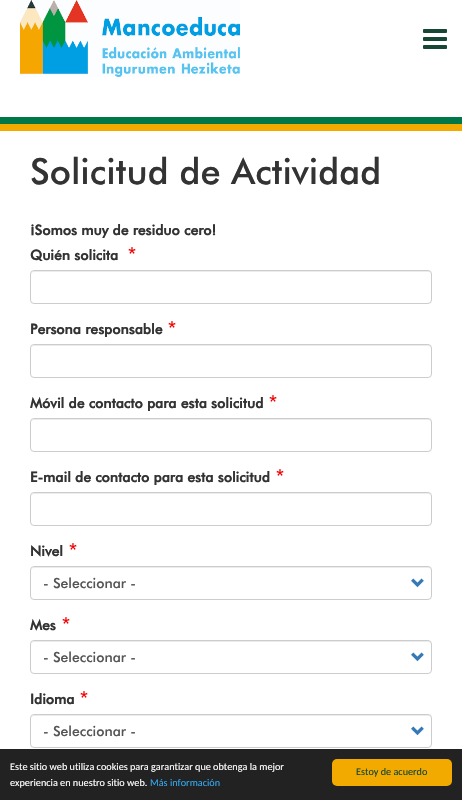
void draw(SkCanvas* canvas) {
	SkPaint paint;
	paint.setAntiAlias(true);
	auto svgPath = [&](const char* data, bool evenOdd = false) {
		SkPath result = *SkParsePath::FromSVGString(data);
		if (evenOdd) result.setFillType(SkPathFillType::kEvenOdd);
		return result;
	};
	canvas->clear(0xffffffff);
	canvas->drawImageRect(SkImages::DeferredFromEncodedData(SkData::MakeFromFileName("img1.png")), SkRect::MakeXYWH(20, 0, 220, 77), SkSamplingOptions());
	canvas->drawImageRect(SkImages::DeferredFromEncodedData(SkData::MakeFromFileName("img2.png")), SkRect::MakeXYWH(423, 29, 24, 20), SkSamplingOptions());
	paint.setColor(0xff007749);
	canvas->drawRect(SkRect::MakeXYWH(0, 117, 462, 7), paint);
	paint.setColor(0xfff2a900);
	canvas->drawRect(SkRect::MakeXYWH(0, 124, 462, 7), paint);
	SkFont f1(fontMgr->matchFamilyStyle("Futura", SkFontStyle(500, SkFontStyle::kNormal_Width, SkFontStyle::kUpright_Slant)), 36);
	f1.setSubpixel(true);
	paint.setColor(0xff333333);
	canvas->drawString("Solicitud de Actividad", 30, 184, f1, paint);
	SkFont f2(fontMgr->matchFamilyStyle("Futura", SkFontStyle::Bold()), 14);
	f2.setSubpixel(true);
	canvas->drawString("¡Somos muy de residuo cero!", 30, 235, f2, paint);
	canvas->drawString("Quién solicita", 30, 260, f2, paint);
	canvas->drawImageRect(SkImages::DeferredFromEncodedData(SkData::MakeFromFileName("img3.png")), SkRect::MakeXYWH(128, 247, 8, 7), SkSamplingOptions());
	paint.setColor(0xffececec);
	canvas->drawPath(svgPath("M34 272H428C430 272 431 273 431 275C431 273 430 271 428 271H34L32 272L31 275C31 273 32 272 34 272Z"), paint);
	paint.setStroke(true);
	paint.setStrokeWidth(1);
	paint.setColor(0xffcccccc);
	canvas->drawRoundRect(SkRect::MakeXYWH(30.5, 270.5, 401, 33), 3.5, 3.5, paint);
	paint.setStroke(false);
	paint.setColor(0xff333333);
	canvas->drawString("Persona responsable", 30, 334, f2, paint);
	canvas->drawImageRect(SkImages::DeferredFromEncodedData(SkData::MakeFromFileName("img3.png")), SkRect::MakeXYWH(168, 321, 8, 7), SkSamplingOptions());
	paint.setColor(0xffececec);
	canvas->drawPath(svgPath("M34 346H428C430 346 431 347 431 349C431 347 430 345 428 345H34L32 346L31 349C31 347 32 346 34 346Z"), paint);
	paint.setStroke(true);
	paint.setColor(0xffcccccc);
	canvas->drawRoundRect(SkRect::MakeXYWH(30.5, 344.5, 401, 33), 3.5, 3.5, paint);
	paint.setStroke(false);
	paint.setColor(0xff333333);
	canvas->drawString("Móvil de contacto para esta solicitud", 30, 408, f2, paint);
	canvas->drawImageRect(SkImages::DeferredFromEncodedData(SkData::MakeFromFileName("img3.png")), SkRect::MakeXYWH(269, 395, 8, 7), SkSamplingOptions());
	paint.setColor(0xffececec);
	canvas->drawPath(svgPath("M34 420H428C430 420 431 421 431 423C431 421 430 419 428 419H34L32 420L31 423C31 421 32 420 34 420Z"), paint);
	paint.setStroke(true);
	paint.setColor(0xffcccccc);
	canvas->drawRoundRect(SkRect::MakeXYWH(30.5, 418.5, 401, 33), 3.5, 3.5, paint);
	paint.setStroke(false);
	paint.setColor(0xff333333);
	canvas->drawString("E-mail de contacto para esta solicitud", 30, 482, f2, paint);
	canvas->drawImageRect(SkImages::DeferredFromEncodedData(SkData::MakeFromFileName("img3.png")), SkRect::MakeXYWH(276, 469, 8, 7), SkSamplingOptions());
	paint.setColor(0xffececec);
	canvas->drawPath(svgPath("M34 494H428C430 494 431 495 431 497C431 495 430 493 428 493H34L32 494L31 497C31 495 32 494 34 494Z"), paint);
	paint.setStroke(true);
	paint.setColor(0xffcccccc);
	canvas->drawRoundRect(SkRect::MakeXYWH(30.5, 492.5, 401, 33), 3.5, 3.5, paint);
	paint.setStroke(false);
	paint.setColor(0xff333333);
	canvas->drawString("Nivel", 30, 556, f2, paint);
	canvas->drawImageRect(SkImages::DeferredFromEncodedData(SkData::MakeFromFileName("img3.png")), SkRect::MakeXYWH(69, 543, 8, 7), SkSamplingOptions());
	paint.setColor(0xffececec);
	canvas->drawPath(svgPath("M34 568H428C430 568 431 569 431 571C431 569 430 567 428 567H34L32 568L31 571C31 569 32 568 34 568Z"), paint);
	paint.setStroke(true);
	paint.setColor(0xffcccccc);
	canvas->drawRoundRect(SkRect::MakeXYWH(30.5, 566.5, 401, 33), 3.5, 3.5, paint);
	SkFont f3(fontMgr->matchFamilyStyle("Futura", SkFontStyle(500, SkFontStyle::kNormal_Width, SkFontStyle::kUpright_Slant)), 14);
	f3.setSubpixel(true);
	paint.setStroke(false);
	paint.setColor(0xff555555);
	canvas->drawString("- Seleccionar -", 43, 588, f3, paint);
	canvas->drawImageRect(SkImages::DeferredFromEncodedData(SkData::MakeFromFileName("img4.png")), SkRect::MakeXYWH(411, 578, 13, 10), SkSamplingOptions());
	paint.setColor(0xff333333);
	canvas->drawString("Mes", 30, 630, f2, paint);
	canvas->drawImageRect(SkImages::DeferredFromEncodedData(SkData::MakeFromFileName("img3.png")), SkRect::MakeXYWH(62, 617, 8, 7), SkSamplingOptions());
	paint.setColor(0xffececec);
	canvas->drawPath(svgPath("M34 642H428C430 642 431 643 431 645C431 643 430 641 428 641H34L32 642L31 645C31 643 32 642 34 642Z"), paint);
	paint.setStroke(true);
	paint.setColor(0xffcccccc);
	canvas->drawRoundRect(SkRect::MakeXYWH(30.5, 640.5, 401, 33), 3.5, 3.5, paint);
	paint.setStroke(false);
	paint.setColor(0xff555555);
	canvas->drawString("- Seleccionar -", 43, 662, f3, paint);
	canvas->drawImageRect(SkImages::DeferredFromEncodedData(SkData::MakeFromFileName("img4.png")), SkRect::MakeXYWH(411, 652, 13, 10), SkSamplingOptions());
	paint.setColor(0xff333333);
	canvas->drawString("Idioma", 30, 704, f2, paint);
	canvas->drawImageRect(SkImages::DeferredFromEncodedData(SkData::MakeFromFileName("img3.png")), SkRect::MakeXYWH(80, 691, 8, 7), SkSamplingOptions());
	paint.setColor(0xffececec);
	canvas->drawPath(svgPath("M34 716H428C430 716 431 717 431 719C431 717 430 715 428 715H34L32 716L31 719C31 717 32 716 34 716Z"), paint);
	paint.setStroke(true);
	paint.setColor(0xffcccccc);
	canvas->drawRoundRect(SkRect::MakeXYWH(30.5, 714.5, 401, 33), 3.5, 3.5, paint);
	paint.setStroke(false);
	paint.setColor(0xff555555);
	canvas->drawString("- Seleccionar -", 43, 736, f3, paint);
	canvas->drawImageRect(SkImages::DeferredFromEncodedData(SkData::MakeFromFileName("img4.png")), SkRect::MakeXYWH(411, 726, 13, 10), SkSamplingOptions());
	paint.setColor(0xff222222);
	canvas->drawRect(SkRect::MakeXYWH(0, 749, 462, 51), paint);
	SkFont f4(fontMgr->matchFamilyStyle("Carlito", SkFontStyle::Normal()), 10.2);
	f4.setSubpixel(true);
	paint.setColor(0xffffffff);
	canvas->drawString("Este sitio web utiliza cookies para garantizar que obtenga la mejor", 10, 770, f4, paint);
	canvas->drawString("experiencia en nuestro sitio web.", 10, 786, f4, paint);
	paint.setColor(0xff31a8f0);
	canvas->drawString("Más información", 150, 786, f4, paint);
	paint.setColor(0xfff2a900);
	canvas->drawRoundRect(SkRect::MakeXYWH(332, 759, 120, 27), 5, 5, paint);
	paint.setColor(0xff154734);
	canvas->drawString("Estoy de acuerdo", 356, 775, f4, paint);
}
